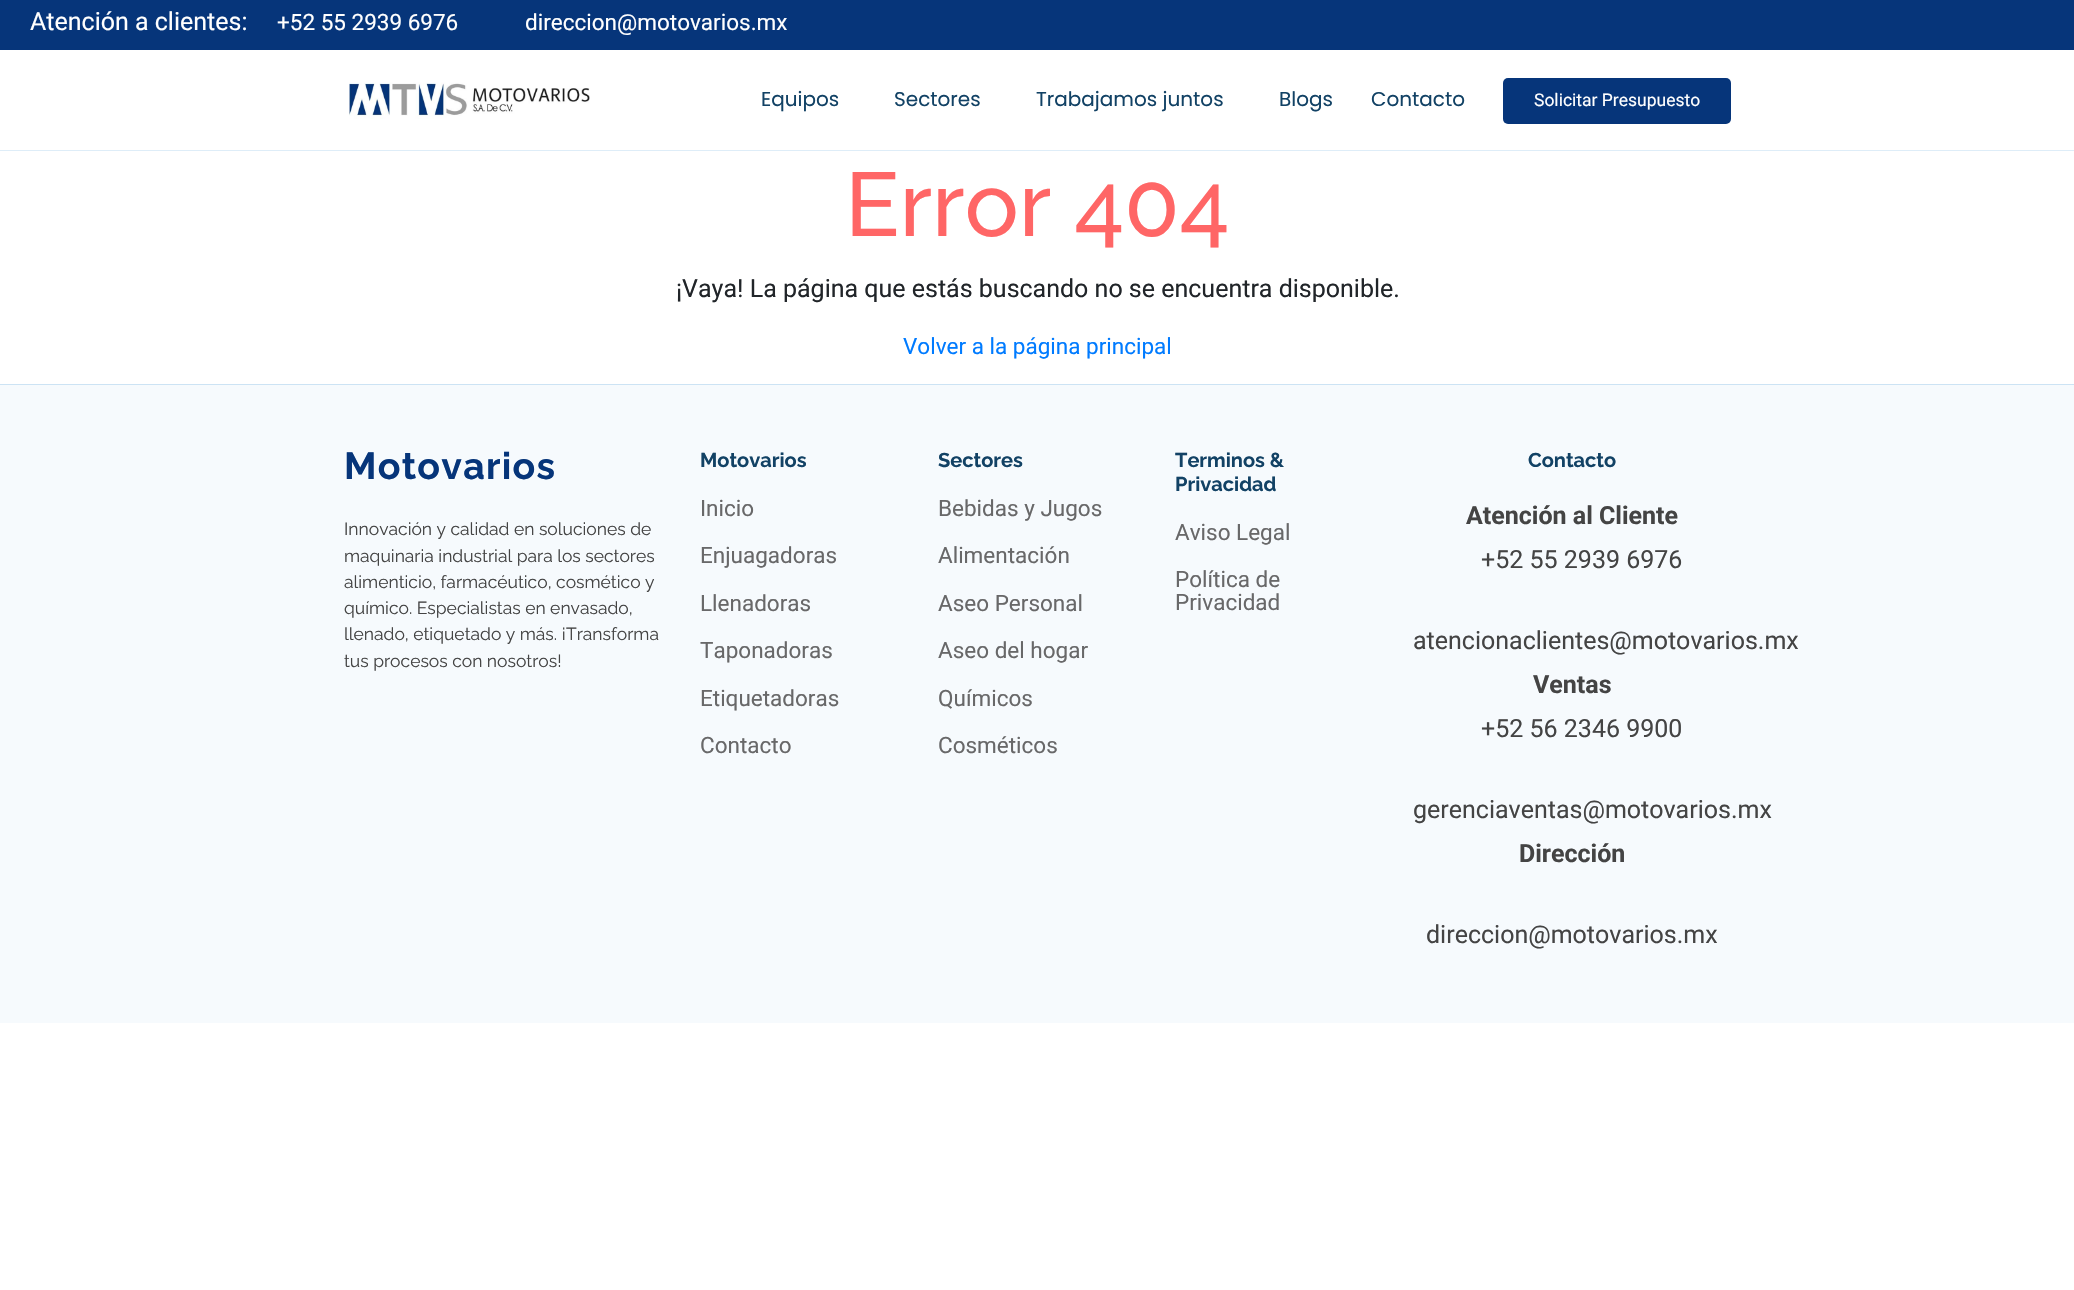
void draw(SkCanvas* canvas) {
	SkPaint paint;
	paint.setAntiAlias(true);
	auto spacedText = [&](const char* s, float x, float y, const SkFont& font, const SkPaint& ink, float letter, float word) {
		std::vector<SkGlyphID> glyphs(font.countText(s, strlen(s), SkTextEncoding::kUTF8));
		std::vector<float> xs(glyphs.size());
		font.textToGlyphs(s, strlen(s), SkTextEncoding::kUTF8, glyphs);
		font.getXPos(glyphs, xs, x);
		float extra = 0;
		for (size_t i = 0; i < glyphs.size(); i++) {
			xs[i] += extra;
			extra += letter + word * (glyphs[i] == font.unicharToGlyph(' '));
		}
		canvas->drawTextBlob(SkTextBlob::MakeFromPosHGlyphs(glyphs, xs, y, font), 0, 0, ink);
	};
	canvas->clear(0xffffffff);
	paint.setColor(0xff06357a);
	canvas->drawRect(SkRect::MakeXYWH(0, 0, 2074, 50), paint);
	SkFont f1(fontMgr->matchFamilyStyle("Roboto", SkFontStyle::Normal()), 25);
	f1.setSubpixel(true);
	paint.setColor(0xffffffff);
	canvas->drawString("Atención a clientes:", 30, 30, f1, paint);
	SkFont f2(fontMgr->matchFamilyStyle("Roboto", SkFontStyle::Normal()), 22.5);
	f2.setSubpixel(true);
	canvas->drawString("+52 55 2939 6976", 277, 30, f2, paint);
	canvas->drawString("direccion@motovarios.mx", 525, 30, f2, paint);
	paint.setColor(0xffdeedf8);
	canvas->drawRect(SkRect::MakeXYWH(0, 150, 2074, 1), paint);
	canvas->drawImageRect(SkImages::DeferredFromEncodedData(SkData::MakeFromFileName("img1.png")), SkRect::MakeXYWH(349, 82, 241, 37), SkSamplingOptions());
	SkFont f3(fontMgr->matchFamilyStyle("Poppins", SkFontStyle::Normal()), 20);
	f3.setSubpixel(true);
	paint.setColor(0xff124265);
	canvas->drawString("Equipos", 761, 106, f3, paint);
	canvas->drawString("Sectores", 894, 106, f3, paint);
	canvas->drawString("Trabajamos juntos", 1036, 106, f3, paint);
	canvas->drawString("Blogs", 1279, 106, f3, paint);
	canvas->drawString("Contacto", 1371, 106, f3, paint);
	paint.setColor(0xff06357a);
	canvas->drawRoundRect(SkRect::MakeXYWH(1503, 78, 228, 46), 5, 5, paint);
	SkFont f4(fontMgr->matchFamilyStyle("Roboto", SkFontStyle::Normal()), 17.5);
	f4.setSubpixel(true);
	paint.setColor(0xffffffff);
	canvas->drawString("Solicitar Presupuesto", 1534, 106, f4, paint);
	SkFont f5(fontMgr->matchFamilyStyle("Raleway", SkFontStyle(500, SkFontStyle::kNormal_Width, SkFontStyle::kUpright_Slant)), 90);
	f5.setSubpixel(true);
	paint.setColor(0xffff6666);
	canvas->drawString("Error 404", 845, 236, f5, paint);
	paint.setColor(0xff212529);
	canvas->drawString("¡Vaya! La página que estás buscando no se encuentra disponible.", 676, 297, f1, paint);
	paint.setColor(0xff007bff);
	canvas->drawString("Volver a la página principal", 903, 354, f2, paint);
	paint.setColor(0xfff6fafd);
	canvas->drawRect(SkRect::MakeXYWH(0, 385, 2074, 638), paint);
	paint.setColor(0xffcce3f4);
	canvas->drawRect(SkRect::MakeXYWH(0, 384, 2074, 1), paint);
	SkFont f6(fontMgr->matchFamilyStyle("Raleway", SkFontStyle::Bold()), 37.5);
	f6.setSubpixel(true);
	paint.setColor(0xff06357a);
	spacedText("Motovarios", 344, 479, f6, paint, 1.25, 0);
	SkFont f7(fontMgr->matchFamilyStyle("Raleway", SkFontStyle::Normal()), 17.5);
	f7.setSubpixel(true);
	paint.setColor(0xff444444);
	canvas->drawString("Innovación y calidad en soluciones de", 344, 535, f7, paint);
	canvas->drawString("maquinaria industrial para los sectores", 344, 562, f7, paint);
	canvas->drawString("alimenticio, farmacéutico, cosmético y", 344, 588, f7, paint);
	canvas->drawString("químico. Especialistas en envasado,", 344, 614, f7, paint);
	canvas->drawString("llenado, etiquetado y más. ¡Transforma", 344, 640, f7, paint);
	canvas->drawString("tus procesos con nosotros!", 344, 667, f7, paint);
	SkFont f8(fontMgr->matchFamilyStyle("Raleway", SkFontStyle::Bold()), 20);
	f8.setSubpixel(true);
	paint.setColor(0xff124265);
	canvas->drawString("Motovarios", 700, 467, f8, paint);
	paint.setColor(0xff686869);
	canvas->drawString("Inicio", 700, 516, f2, paint);
	canvas->drawString("Enjuagadoras", 700, 563, f2, paint);
	canvas->drawString("Llenadoras", 700, 611, f2, paint);
	canvas->drawString("Taponadoras", 700, 658, f2, paint);
	canvas->drawString("Etiquetadoras", 700, 706, f2, paint);
	canvas->drawString("Contacto", 700, 753, f2, paint);
	paint.setColor(0xff124265);
	canvas->drawString("Sectores", 938, 467, f8, paint);
	paint.setColor(0xff686869);
	canvas->drawString("Bebidas y Jugos", 938, 516, f2, paint);
	canvas->drawString("Alimentación", 938, 563, f2, paint);
	canvas->drawString("Aseo Personal", 938, 611, f2, paint);
	canvas->drawString("Aseo del hogar", 938, 658, f2, paint);
	canvas->drawString("Químicos", 938, 706, f2, paint);
	canvas->drawString("Cosméticos", 938, 753, f2, paint);
	paint.setColor(0xff124265);
	canvas->drawString("Terminos &", 1175, 467, f8, paint);
	canvas->drawString("Privacidad", 1175, 491, f8, paint);
	paint.setColor(0xff686869);
	canvas->drawString("Aviso Legal", 1175, 540, f2, paint);
	canvas->drawString("Política de", 1175, 587, f2, paint);
	canvas->drawString("Privacidad", 1175, 610, f2, paint);
	paint.setColor(0xff124265);
	canvas->drawString("Contacto", 1528, 467, f8, paint);
	SkFont f9(fontMgr->matchFamilyStyle("Roboto", SkFontStyle::Bold()), 25);
	f9.setSubpixel(true);
	paint.setColor(0xff444444);
	canvas->drawString("Atención al Cliente", 1466, 524, f9, paint);
	canvas->drawString("+52 55 2939 6976", 1481, 568, f1, paint);
	canvas->drawString("atencionaclientes@motovarios.mx", 1413, 649, f1, paint);
	canvas->drawString("Ventas", 1533, 693, f9, paint);
	canvas->drawString("+52 56 2346 9900", 1481, 737, f1, paint);
	canvas->drawString("gerenciaventas@motovarios.mx", 1413, 818, f1, paint);
	canvas->drawString("Dirección", 1519, 862, f9, paint);
	canvas->drawString("direccion@motovarios.mx", 1426, 943, f1, paint);
}
